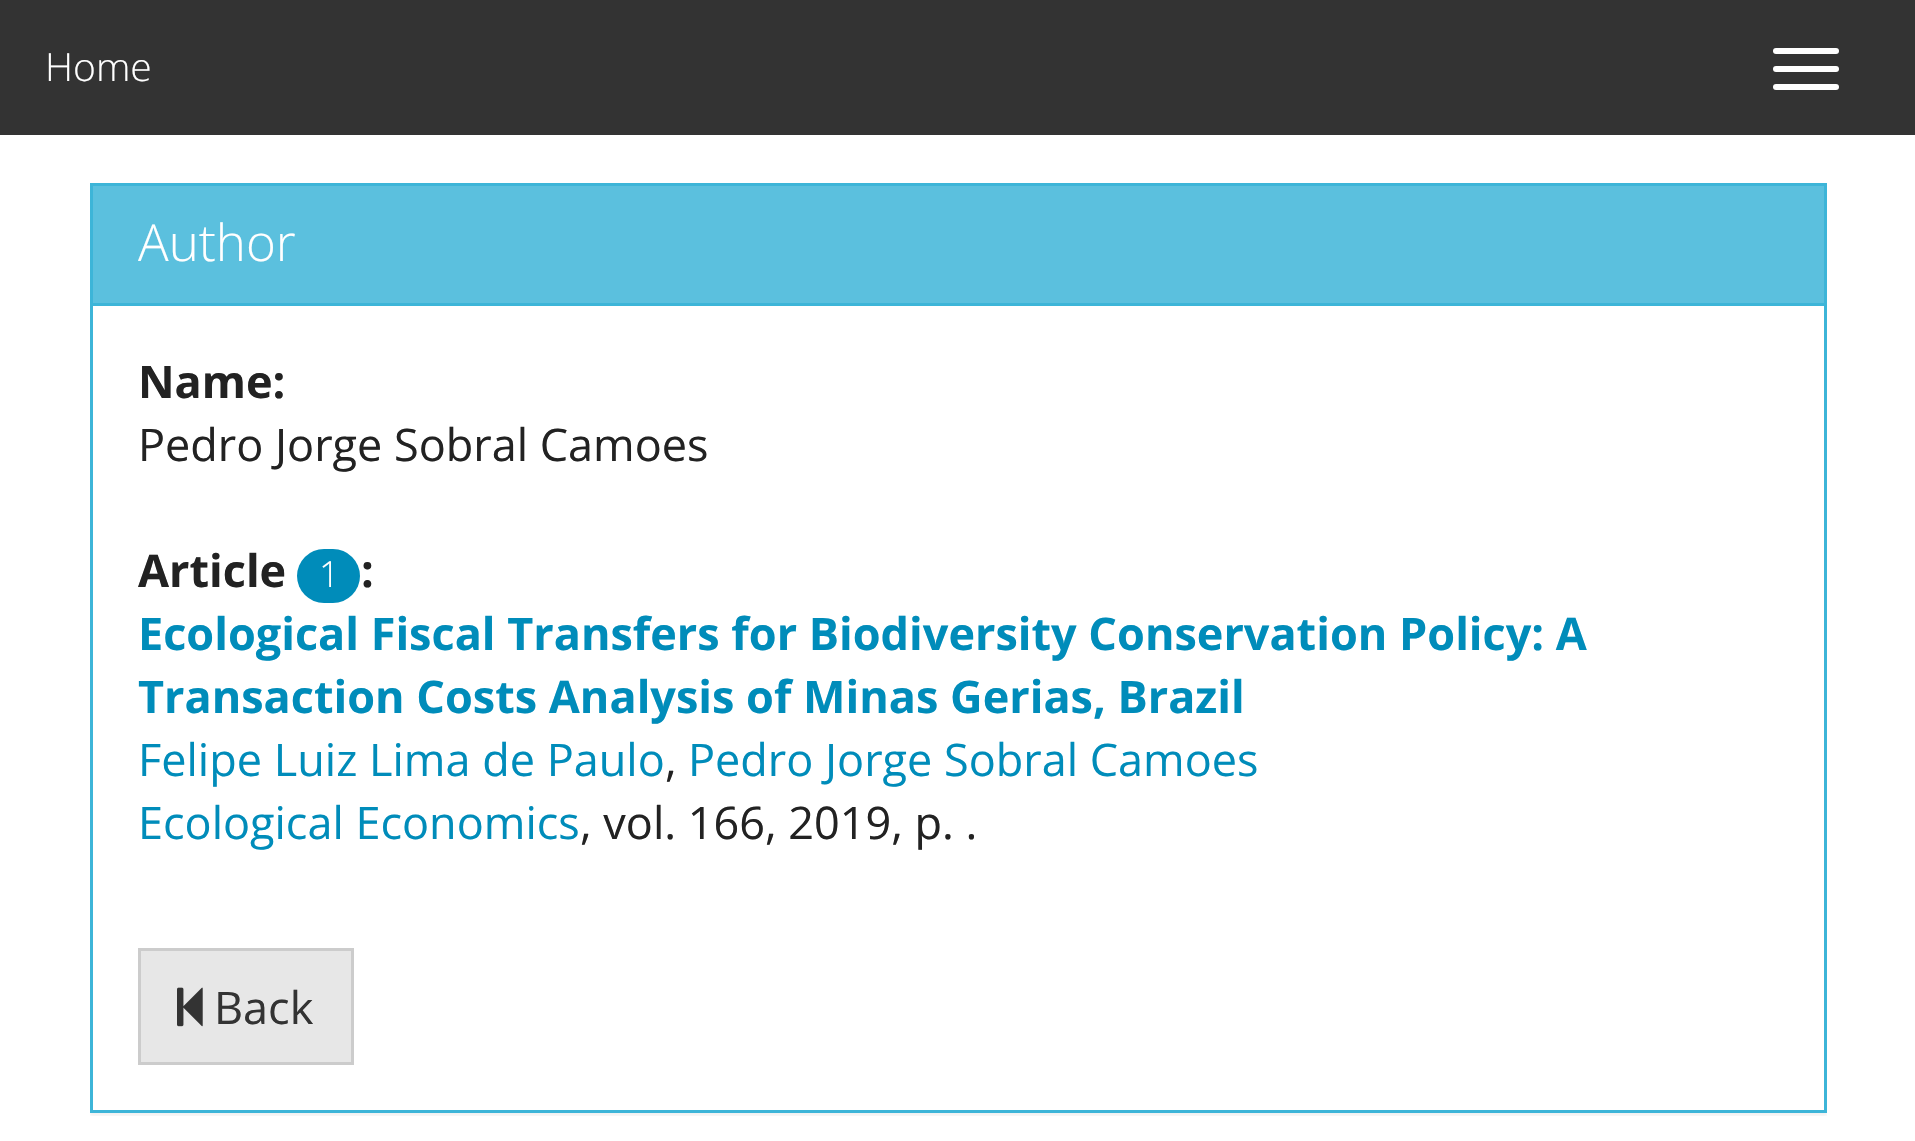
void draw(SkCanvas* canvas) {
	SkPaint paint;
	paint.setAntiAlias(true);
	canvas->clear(0xffffffff);
	paint.setColor(0xff333333);
	canvas->drawRect(SkRect::MakeXYWH(0, 0, 1915, 135), paint);
	SkFont f1(fontMgr->matchFamilyStyle("Open Sans", SkFontStyle(300, SkFontStyle::kNormal_Width, SkFontStyle::kUpright_Slant)), 39);
	f1.setSubpixel(true);
	paint.setColor(0xffffffff);
	canvas->drawString("Home", 45, 81, f1, paint);
	canvas->drawRoundRect(SkRect::MakeXYWH(1773, 48, 66, 6), 3, 3, paint);
	canvas->drawRoundRect(SkRect::MakeXYWH(1773, 66, 66, 6), 3, 3, paint);
	canvas->drawRoundRect(SkRect::MakeXYWH(1773, 84, 66, 6), 3, 3, paint);
	canvas->save();
	canvas->clipRect(SkRect::MakeXYWH(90, 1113, 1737, 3));
	paint.setColor(0x0d000000);
	paint.setMaskFilter(SkMaskFilter::MakeBlur(kNormal_SkBlurStyle, 1.5));
	canvas->drawRect(SkRect::MakeXYWH(90, 186, 1737, 930), paint);
	paint.setMaskFilter(nullptr);
	canvas->restore();
	paint.setStroke(true);
	paint.setStrokeWidth(3);
	paint.setColor(0xff3db5d8);
	canvas->drawRect(SkRect::MakeXYWH(91.5, 184.5, 1734, 927), paint);
	paint.setStroke(false);
	paint.setColor(0xff5bc0de);
	canvas->drawRect(SkRect::MakeXYWH(93, 186, 1731, 117), paint);
	paint.setColor(0xff3db5d8);
	canvas->drawRect(SkRect::MakeXYWH(93, 303, 1731, 3), paint);
	SkFont f2(fontMgr->matchFamilyStyle("Open Sans", SkFontStyle(300, SkFontStyle::kNormal_Width, SkFontStyle::kUpright_Slant)), 51);
	f2.setSubpixel(true);
	paint.setColor(0xffffffff);
	canvas->drawString("Author", 138, 261, f2, paint);
	SkFont f3(fontMgr->matchFamilyStyle("Open Sans", SkFontStyle::Bold()), 45);
	f3.setSubpixel(true);
	paint.setColor(0xff222222);
	canvas->drawString("Name:", 138, 398, f3, paint);
	SkFont f4(fontMgr->matchFamilyStyle("Open Sans", SkFontStyle::Normal()), 45);
	f4.setSubpixel(true);
	canvas->drawString("Pedro Jorge Sobral Camoes", 138, 461, f4, paint);
	canvas->drawString("Article", 138, 587, f3, paint);
	paint.setColor(0xff008cba);
	canvas->drawRoundRect(SkRect::MakeXYWH(297, 549, 63, 54), 27, 27, paint);
	SkFont f5(fontMgr->matchFamilyStyle("Open Sans", SkFontStyle(300, SkFontStyle::kNormal_Width, SkFontStyle::kUpright_Slant)), 36);
	f5.setSubpixel(true);
	paint.setColor(0xffffffff);
	canvas->drawString("1", 319, 587, f5, paint);
	paint.setColor(0xff222222);
	canvas->drawString(":", 361, 587, f3, paint);
	paint.setColor(0xff008cba);
	canvas->drawString("Ecological Fiscal Transfers for Biodiversity Conservation Policy: A", 138, 650, f3, paint);
	canvas->drawString("Transaction Costs Analysis of Minas Gerias, Brazil", 138, 713, f3, paint);
	canvas->drawString("Felipe Luiz Lima de Paulo", 138, 776, f4, paint);
	paint.setColor(0xff222222);
	canvas->drawString(",", 665, 776, f4, paint);
	paint.setColor(0xff008cba);
	canvas->drawString("Pedro Jorge Sobral Camoes", 688, 776, f4, paint);
	canvas->drawString("Ecological Economics", 138, 839, f4, paint);
	paint.setColor(0xff222222);
	canvas->drawString(", vol. 166, 2019, p. .", 580, 839, f4, paint);
	paint.setColor(0xffe7e7e7);
	canvas->drawRect(SkRect::MakeXYWH(139.5, 949.5, 213, 114), paint);
	paint.setStroke(true);
	paint.setColor(0xffcccccc);
	canvas->drawRect(SkRect::MakeXYWH(139.5, 949.5, 213, 114), paint);
	canvas->drawImageRect(SkImages::DeferredFromEncodedData(SkData::MakeFromFileName("img1.png")), SkRect::MakeXYWH(177, 987, 26, 40), SkSamplingOptions());
	paint.setStroke(false);
	paint.setColor(0xff333333);
	canvas->drawString("Back", 214, 1024, f4, paint);
}
